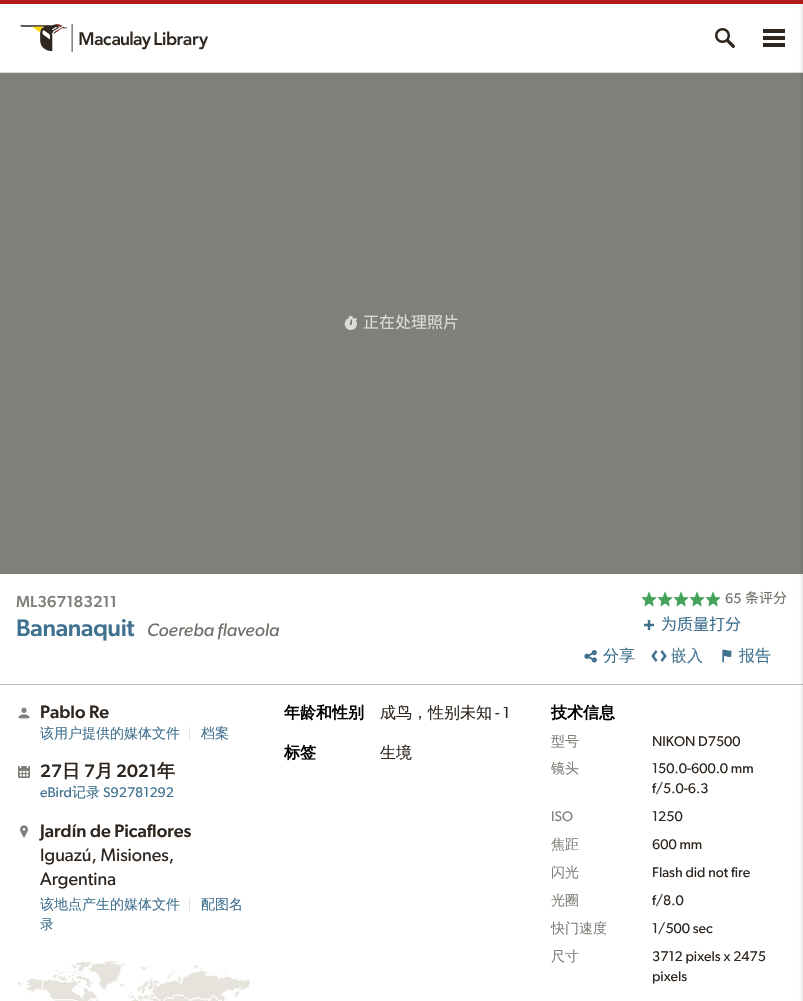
void draw(SkCanvas* canvas) {
	SkPaint paint;
	paint.setAntiAlias(true);
	auto spacedText = [&](const char* s, float x, float y, const SkFont& font, const SkPaint& ink, float letter, float word) {
		std::vector<SkGlyphID> glyphs(font.countText(s, strlen(s), SkTextEncoding::kUTF8));
		std::vector<float> xs(glyphs.size());
		font.textToGlyphs(s, strlen(s), SkTextEncoding::kUTF8, glyphs);
		font.getXPos(glyphs, xs, x);
		float extra = 0;
		for (size_t i = 0; i < glyphs.size(); i++) {
			xs[i] += extra;
			extra += letter + word * (glyphs[i] == font.unicharToGlyph(' '));
		}
		canvas->drawTextBlob(SkTextBlob::MakeFromPosHGlyphs(glyphs, xs, y, font), 0, 0, ink);
	};
	canvas->clear(0xffffffff);
	paint.setColor(0xffb31b1b);
	canvas->drawRect(SkRect::MakeXYWH(0, 0, 803, 4), paint);
	paint.setColor(0xffdbdbd9);
	canvas->drawRect(SkRect::MakeXYWH(0, 72, 803, 1), paint);
	canvas->drawImageRect(SkImages::DeferredFromEncodedData(SkData::MakeFromFileName("img1.png")), SkRect::MakeXYWH(20, 24, 188, 28), SkSamplingOptions());
	canvas->drawImageRect(SkImages::DeferredFromEncodedData(SkData::MakeFromFileName("img2.png")), SkRect::MakeXYWH(715, 28, 20, 20), SkSamplingOptions());
	canvas->drawImageRect(SkImages::DeferredFromEncodedData(SkData::MakeFromFileName("img3.png")), SkRect::MakeXYWH(763, 29, 22, 18), SkSamplingOptions());
	paint.setColor(0xff817f79);
	canvas->drawRect(SkRect::MakeXYWH(0, 73, 803, 501), paint);
	paint.setColor(0xffbfbfbf);
	canvas->drawRect(SkRect::MakeXYWH(0, 684, 803, 1), paint);
	paint.setColor(0x33000000);
	paint.setMaskFilter(SkMaskFilter::MakeBlur(kNormal_SkBlurStyle, 2));
	canvas->drawRect(SkRect::MakeXYWH(803, 2, 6, 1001), paint);
	paint.setMaskFilter(nullptr);
	canvas->drawImageRect(SkImages::DeferredFromEncodedData(SkData::MakeFromFileName("img4.png")), SkRect::MakeXYWH(344, 316, 13, 14), SkSamplingOptions());
	SkFont f1(fontMgr->matchFamilyStyle("Noto Sans CJK SC", SkFontStyle::Normal()), 16);
	f1.setSubpixel(true);
	paint.setColor(0xffdcdcd5);
	canvas->drawString("正在处理照片", 363, 328, f1, paint);
	SkFont f2(fontMgr->matchFamilyStyle("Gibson", SkFontStyle(500, SkFontStyle::kNormal_Width, SkFontStyle::kUpright_Slant)), 16);
	f2.setSubpixel(true);
	paint.setColor(0xff817f79);
	canvas->drawString("ML367183211", 16, 607, f2, paint);
	SkFont f3(fontMgr->matchFamilyStyle("Gibson", SkFontStyle(500, SkFontStyle::kNormal_Width, SkFontStyle::kUpright_Slant)), 24);
	f3.setSubpixel(true);
	paint.setColor(0xff40718f);
	spacedText("Bananaquit", 16, 636, f3, paint, -0.25, 0);
	SkFont f4(fontMgr->matchFamilyStyle("Gibson", SkFontStyle::Italic()), 18);
	f4.setSubpixel(true);
	paint.setColor(0xff6f6e67);
	canvas->drawString("Coereba flaveola", 147, 636, f4, paint);
	canvas->drawImageRect(SkImages::DeferredFromEncodedData(SkData::MakeFromFileName("img5.png")), SkRect::MakeXYWH(641, 591, 16, 16), SkSamplingOptions());
	canvas->drawImageRect(SkImages::DeferredFromEncodedData(SkData::MakeFromFileName("img5.png")), SkRect::MakeXYWH(657, 591, 16, 16), SkSamplingOptions());
	canvas->drawImageRect(SkImages::DeferredFromEncodedData(SkData::MakeFromFileName("img5.png")), SkRect::MakeXYWH(673, 591, 16, 16), SkSamplingOptions());
	canvas->drawImageRect(SkImages::DeferredFromEncodedData(SkData::MakeFromFileName("img5.png")), SkRect::MakeXYWH(689, 591, 16, 16), SkSamplingOptions());
	canvas->drawImageRect(SkImages::DeferredFromEncodedData(SkData::MakeFromFileName("img5.png")), SkRect::MakeXYWH(705, 591, 16, 16), SkSamplingOptions());
	SkFont f5(fontMgr->matchFamilyStyle("Gibson", SkFontStyle::Normal()), 14);
	f5.setSubpixel(true);
	canvas->drawString("65", 725, 603, f5, paint);
	SkFont f6(fontMgr->matchFamilyStyle("Noto Sans CJK SC", SkFontStyle::Normal()), 14);
	f6.setSubpixel(true);
	canvas->drawString("条评分", 745, 603, f6, paint);
	canvas->drawImageRect(SkImages::DeferredFromEncodedData(SkData::MakeFromFileName("img6.png")), SkRect::MakeXYWH(644, 620, 10, 10), SkSamplingOptions());
	paint.setColor(0xff40718f);
	canvas->drawString("为质量打分", 661, 630, f1, paint);
	canvas->drawImageRect(SkImages::DeferredFromEncodedData(SkData::MakeFromFileName("img7.png")), SkRect::MakeXYWH(584, 650, 13, 13), SkSamplingOptions());
	SkFont f7(fontMgr->matchFamilyStyle("WenQuanYi Zen Hei", SkFontStyle(500, SkFontStyle::kNormal_Width, SkFontStyle::kUpright_Slant)), 16);
	f7.setSubpixel(true);
	canvas->drawString("分享", 603, 661, f7, paint);
	canvas->drawImageRect(SkImages::DeferredFromEncodedData(SkData::MakeFromFileName("img8.png")), SkRect::MakeXYWH(651, 650, 16, 12), SkSamplingOptions());
	canvas->drawString("嵌入", 671, 661, f7, paint);
	canvas->drawImageRect(SkImages::DeferredFromEncodedData(SkData::MakeFromFileName("img9.png")), SkRect::MakeXYWH(722, 649, 10, 14), SkSamplingOptions());
	canvas->drawString("报告", 739, 661, f7, paint);
	canvas->drawImageRect(SkImages::DeferredFromEncodedData(SkData::MakeFromFileName("img10.png")), SkRect::MakeXYWH(18, 707, 12, 12), SkSamplingOptions());
	SkFont f8(fontMgr->matchFamilyStyle("Gibson", SkFontStyle(500, SkFontStyle::kNormal_Width, SkFontStyle::kUpright_Slant)), 18);
	f8.setSubpixel(true);
	paint.setColor(0xff2e261f);
	canvas->drawString("Pablo Re", 40, 718, f8, paint);
	SkFont f9(fontMgr->matchFamilyStyle("WenQuanYi Zen Hei", SkFontStyle(500, SkFontStyle::kNormal_Width, SkFontStyle::kUpright_Slant)), 14);
	f9.setSubpixel(true);
	paint.setColor(0xff40718f);
	canvas->drawString("该用户提供的媒体文件", 40, 738, f9, paint);
	paint.setColor(0xffe5e3dc);
	canvas->drawRect(SkRect::MakeXYWH(189, 727, 1, 14), paint);
	paint.setColor(0xff40718f);
	canvas->drawString("档案", 201, 738, f9, paint);
	canvas->drawImageRect(SkImages::DeferredFromEncodedData(SkData::MakeFromFileName("img11.png")), SkRect::MakeXYWH(18, 766, 12, 12), SkSamplingOptions());
	paint.setColor(0xff2e261f);
	canvas->drawString("27", 40, 777, f8, paint);
	SkFont f10(fontMgr->matchFamilyStyle("WenQuanYi Zen Hei", SkFontStyle::Bold()), 18);
	f10.setSubpixel(true);
	canvas->drawString("日", 62, 777, f10, paint);
	canvas->drawString("7", 84, 777, f8, paint);
	canvas->drawString("月", 95, 777, f10, paint);
	canvas->drawString("2021", 116, 777, f8, paint);
	canvas->drawString("年", 157, 777, f10, paint);
	paint.setColor(0xff40718f);
	canvas->drawString("eBird", 40, 797, f5, paint);
	canvas->drawString("记录", 72, 797, f9, paint);
	canvas->drawString("S92781292", 103, 797, f5, paint);
	canvas->drawImageRect(SkImages::DeferredFromEncodedData(SkData::MakeFromFileName("img12.png")), SkRect::MakeXYWH(20, 825, 8, 13), SkSamplingOptions());
	paint.setColor(0xff2e261f);
	canvas->drawString("Jardín de Picaflores", 40, 837, f8, paint);
	SkFont f11(fontMgr->matchFamilyStyle("Gibson", SkFontStyle::Normal()), 18);
	f11.setSubpixel(true);
	canvas->drawString("Iguazú, Misiones,", 40, 861, f11, paint);
	canvas->drawString("Argentina", 40, 885, f11, paint);
	paint.setColor(0xff40718f);
	canvas->drawString("该地点产生的媒体文件", 40, 909, f9, paint);
	paint.setColor(0xffe5e3dc);
	canvas->drawRect(SkRect::MakeXYWH(189, 898, 1, 14), paint);
	paint.setColor(0xff40718f);
	canvas->drawString("配图名", 201, 909, f9, paint);
	canvas->drawString("录", 40, 929, f9, paint);
	canvas->drawImageRect(SkImages::DeferredFromEncodedData(SkData::MakeFromFileName("img13.png")), SkRect::MakeXYWH(17, 961, 233, 40), SkSamplingOptions());
	SkFont f12(fontMgr->matchFamilyStyle("WenQuanYi Zen Hei", SkFontStyle::Bold()), 16);
	f12.setSubpixel(true);
	paint.setColor(0xff000000);
	canvas->drawString("年龄和性别", 284, 718, f12, paint);
	paint.setColor(0xff2e261f);
	canvas->drawString("成鸟，性别未知", 380, 718, f7, paint);
	SkFont f13(fontMgr->matchFamilyStyle("Gibson", SkFontStyle::Normal()), 16);
	f13.setSubpixel(true);
	canvas->drawString("- 1", 495, 718, f13, paint);
	paint.setColor(0xff000000);
	canvas->drawString("标签", 284, 758, f12, paint);
	paint.setColor(0xff2e261f);
	canvas->drawString("生境", 380, 758, f7, paint);
	paint.setColor(0xff000000);
	canvas->drawString("技术信息", 551, 718, f12, paint);
	paint.setColor(0xff817f79);
	canvas->drawString("型号", 551, 746, f9, paint);
	paint.setColor(0xff2e261f);
	canvas->drawString("NIKON D7500", 652, 746, f5, paint);
	paint.setColor(0xff817f79);
	canvas->drawString("镜头", 551, 773, f9, paint);
	paint.setColor(0xff2e261f);
	canvas->drawString("150.0-600.0 mm", 652, 773, f5, paint);
	canvas->drawString("f/5.0-6.3", 652, 793, f5, paint);
	paint.setColor(0xff817f79);
	canvas->drawString("ISO", 551, 821, f5, paint);
	paint.setColor(0xff2e261f);
	canvas->drawString("1250", 652, 821, f5, paint);
	paint.setColor(0xff817f79);
	canvas->drawString("焦距", 551, 849, f9, paint);
	paint.setColor(0xff2e261f);
	canvas->drawString("600 mm", 652, 849, f5, paint);
	paint.setColor(0xff817f79);
	canvas->drawString("闪光", 551, 877, f9, paint);
	paint.setColor(0xff2e261f);
	canvas->drawString("Flash did not fire", 652, 877, f5, paint);
	paint.setColor(0xff817f79);
	canvas->drawString("光圈", 551, 905, f9, paint);
	paint.setColor(0xff2e261f);
	canvas->drawString("f/8.0", 652, 905, f5, paint);
	paint.setColor(0xff817f79);
	canvas->drawString("快门速度", 551, 933, f9, paint);
	paint.setColor(0xff2e261f);
	canvas->drawString("1/500 sec", 652, 933, f5, paint);
	paint.setColor(0xff817f79);
	canvas->drawString("尺寸", 551, 961, f9, paint);
	paint.setColor(0xff2e261f);
	canvas->drawString("3712 pixels x 2475", 652, 961, f5, paint);
	canvas->drawString("pixels", 652, 981, f5, paint);
}
